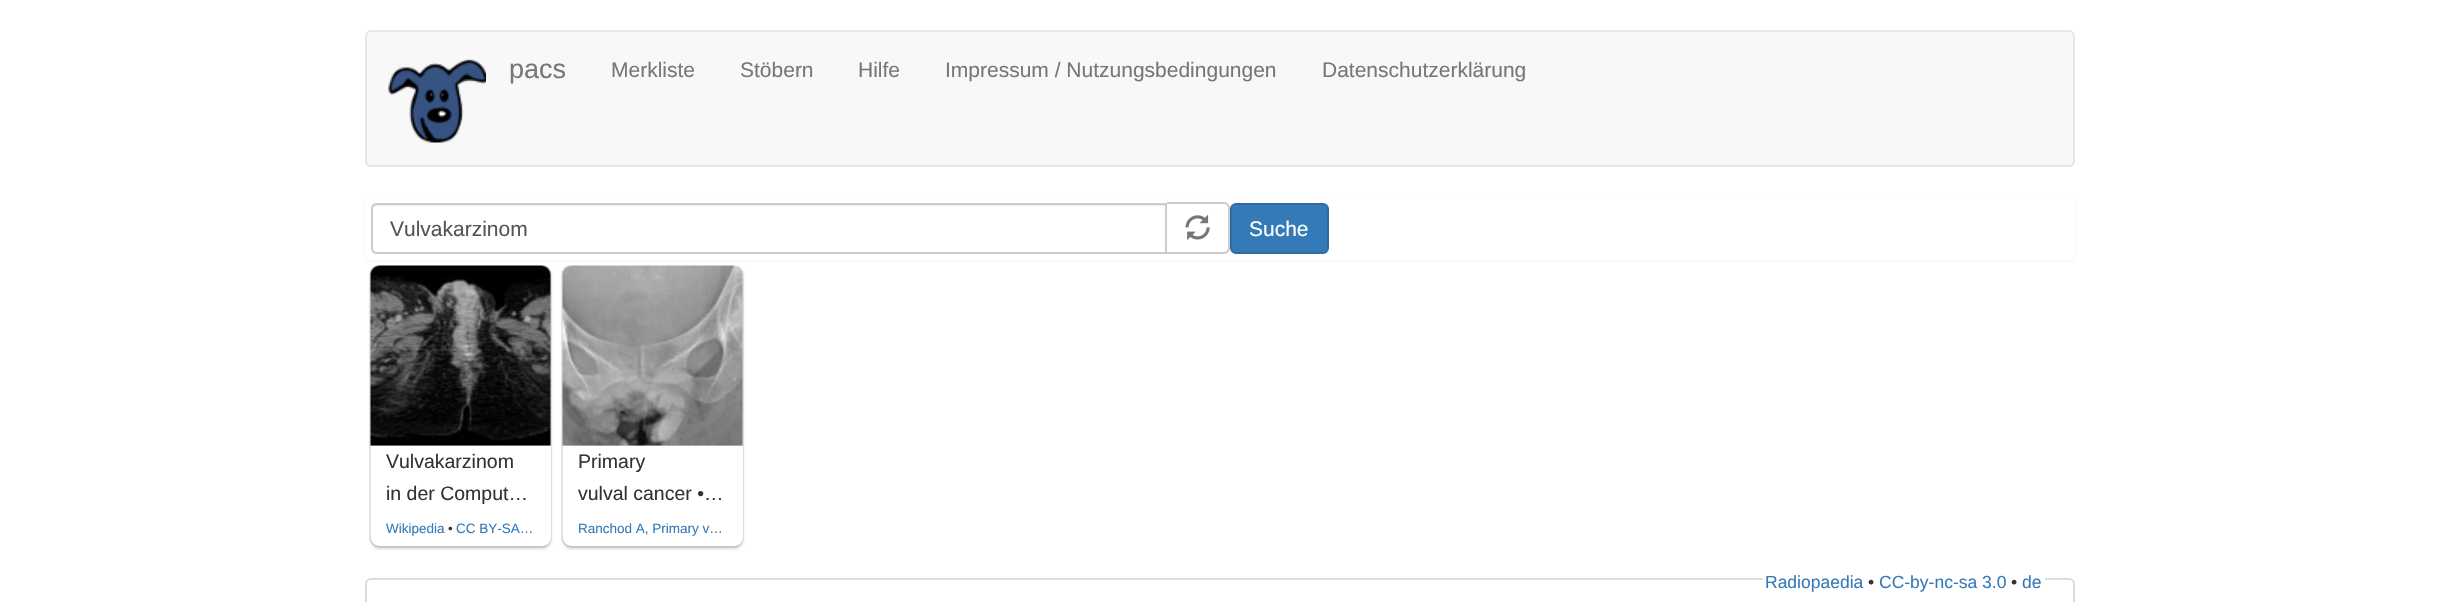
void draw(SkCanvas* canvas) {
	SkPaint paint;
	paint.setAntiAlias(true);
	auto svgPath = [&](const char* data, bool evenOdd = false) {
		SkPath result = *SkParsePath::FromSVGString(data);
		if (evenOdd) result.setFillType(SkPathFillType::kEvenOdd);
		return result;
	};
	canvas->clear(0xffffffff);
	paint.setColor(0xfff8f8f8);
	canvas->drawRoundRect(SkRect::MakeXYWH(366, 31, 1708, 135), 5, 5, paint);
	paint.setStroke(true);
	paint.setStrokeWidth(2);
	paint.setColor(0xffe7e7e7);
	canvas->drawRoundRect(SkRect::MakeXYWH(366, 31, 1708, 135), 5, 5, paint);
	canvas->drawImageRect(SkImages::DeferredFromEncodedData(SkData::MakeFromFileName("img1.png")), SkRect::MakeXYWH(388, 59, 98, 84), SkSamplingOptions());
	SkFont f1(fontMgr->matchFamilyStyle("Liberation Sans", SkFontStyle::Normal()), 27);
	f1.setSubpixel(true);
	paint.setStroke(false);
	paint.setColor(0xff777777);
	canvas->drawString("pacs", 509, 78, f1, paint);
	SkFont f2(fontMgr->matchFamilyStyle("Liberation Sans", SkFontStyle::Normal()), 21);
	f2.setSubpixel(true);
	canvas->drawString("Merkliste", 611, 77, f2, paint);
	canvas->drawString("Stöbern", 740, 77, f2, paint);
	canvas->drawString("Hilfe", 858, 77, f2, paint);
	canvas->drawString("Impressum / Nutzungsbedingungen", 945, 77, f2, paint);
	canvas->drawString("Datenschutzerklärung", 1322, 77, f2, paint);
	paint.setColor(0x0d000000);
	paint.setMaskFilter(SkMaskFilter::MakeBlur(kNormal_SkBlurStyle, 1));
	canvas->drawRoundRect(SkRect::MakeXYWH(365, 198, 1710, 63), 6, 6, paint);
	paint.setMaskFilter(nullptr);
	paint.setColor(0xffffffff);
	canvas->drawRoundRect(SkRect::MakeXYWH(365, 197, 1710, 63), 6, 6, paint);
	paint.setColor(0xffececec);
	canvas->drawPath(svgPath("M376 206H1166V204H377C374 204 372 206 372 209V210C372 208 374 206 376 206Z"), paint);
	paint.setStroke(true);
	paint.setColor(0xffcccccc);
	canvas->drawPath(svgPath("M377 204H1166V253H377C374 253 372 251 372 248V209C372 206 374 204 377 204Z"), paint);
	paint.setStroke(false);
	paint.setColor(0xff555555);
	canvas->drawString("Vulvakarzinom", 390, 236, f2, paint);
	paint.setColor(0xffcccccc);
	canvas->drawPath(svgPath("M1167 202H1224C1227 202 1230 205 1230 208V248C1230 251 1227 254 1224 254H1167ZM1167 204H1224C1226 204 1228 206 1228 208V248C1228 250 1226 252 1224 252H1167Z", true), paint);
	canvas->drawImageRect(SkImages::DeferredFromEncodedData(SkData::MakeFromFileName("img2.png")), SkRect::MakeXYWH(1185, 214, 25, 26), SkSamplingOptions());
	paint.setColor(0xff337ab7);
	canvas->drawRoundRect(SkRect::MakeXYWH(1231, 204, 97, 49), 5, 5, paint);
	paint.setStroke(true);
	paint.setColor(0xff2e6da4);
	canvas->drawRoundRect(SkRect::MakeXYWH(1231, 204, 97, 49), 5, 5, paint);
	paint.setStroke(false);
	paint.setColor(0xffffffff);
	canvas->drawString("Suche", 1249, 236, f2, paint);
	canvas->save();
	canvas->clipRect(SkRect::MakeXYWH(365, 266, 1710, 285));
	paint.setStroke(true);
	paint.setColor(0xffebebeb);
	canvas->drawRoundRect(SkRect::MakeXYWH(370, 265, 181, 282), 10, 10, paint);
	canvas->restore();
	paint.setStroke(false);
	paint.setColor(0x29000000);
	paint.setMaskFilter(SkMaskFilter::MakeBlur(kNormal_SkBlurStyle, 1.5));
	canvas->drawRoundRect(SkRect::MakeXYWH(371, 269, 180, 280), 9, 9, paint);
	paint.setMaskFilter(nullptr);
	canvas->drawImageRect(SkImages::DeferredFromEncodedData(SkData::MakeFromFileName("img3.png")), SkRect::MakeXYWH(370, 265, 181, 181), SkSamplingOptions());
	paint.setColor(0xffffffff);
	canvas->drawPath(svgPath("M371 446H551V537C551 542 547 546 542 546H380C375 546 371 542 371 537Z"), paint);
	SkFont f3(fontMgr->matchFamilyStyle("Liberation Sans", SkFontStyle::Normal()), 19.5);
	f3.setSubpixel(true);
	paint.setColor(0xff333333);
	canvas->drawString("Vulvakarzinom", 386, 468, f3, paint);
	canvas->drawString("in der Comput…", 386, 500, f3, paint);
	SkFont f4(fontMgr->matchFamilyStyle("Liberation Sans", SkFontStyle::Normal()), 13.5);
	f4.setSubpixel(true);
	paint.setColor(0xff337ab7);
	canvas->drawString("Wikipedia", 386, 533, f4, paint);
	paint.setColor(0xff333333);
	canvas->drawString("•", 448, 533, f4, paint);
	paint.setColor(0xff337ab7);
	canvas->drawString("CC BY-SA…", 456, 533, f4, paint);
	canvas->save();
	canvas->clipRect(SkRect::MakeXYWH(365, 266, 1710, 285));
	paint.setStroke(true);
	paint.setColor(0xffebebeb);
	canvas->drawRoundRect(SkRect::MakeXYWH(562, 265, 181, 282), 10, 10, paint);
	canvas->restore();
	paint.setStroke(false);
	paint.setColor(0x29000000);
	paint.setMaskFilter(SkMaskFilter::MakeBlur(kNormal_SkBlurStyle, 1.5));
	canvas->drawRoundRect(SkRect::MakeXYWH(563, 269, 180, 280), 9, 9, paint);
	paint.setMaskFilter(nullptr);
	canvas->drawImageRect(SkImages::DeferredFromEncodedData(SkData::MakeFromFileName("img4.png")), SkRect::MakeXYWH(562, 265, 181, 181), SkSamplingOptions());
	paint.setColor(0xffffffff);
	canvas->drawPath(svgPath("M563 446H743V537C743 542 739 546 734 546H572C567 546 563 542 563 537Z"), paint);
	paint.setColor(0xff333333);
	canvas->drawString("Primary", 578, 468, f3, paint);
	canvas->drawString("vulval cancer •…", 578, 500, f3, paint);
	paint.setColor(0xff337ab7);
	canvas->drawString("Ranchod A, Primary v…", 578, 533, f4, paint);
	paint.setStroke(true);
	paint.setColor(0xffdddddd);
	canvas->drawRoundRect(SkRect::MakeXYWH(366, 579, 1708, 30), 5, 5, paint);
	paint.setStroke(false);
	paint.setColor(0xffffffff);
	canvas->drawPath(svgPath("M1768 569H1863V594H1768C1765 594 1763 592 1763 589V574C1763 571 1765 569 1768 569Z"), paint);
	canvas->drawRect(SkRect::MakeXYWH(1863, 578, 159, 2), paint);
	SkFont f5(fontMgr->matchFamilyStyle("Liberation Sans", SkFontStyle::Normal()), 17.5);
	f5.setSubpixel(true);
	paint.setColor(0xff337ab7);
	canvas->drawString("Radiopaedia", 1765, 588, f5, paint);
	paint.setColor(0xff333333);
	canvas->drawString("•", 1868, 588, f5, paint);
	paint.setColor(0xff337ab7);
	canvas->drawString("CC-by-nc-sa 3.0", 1879, 588, f5, paint);
	paint.setColor(0xff333333);
	canvas->drawString("•", 2011, 588, f5, paint);
	paint.setColor(0xffffffff);
	canvas->drawPath(svgPath("M2022 569H2040C2043 569 2045 571 2045 574V589C2045 592 2043 594 2040 594H2022Z"), paint);
	paint.setColor(0xff337ab7);
	canvas->drawString("de", 2022, 588, f5, paint);
}
